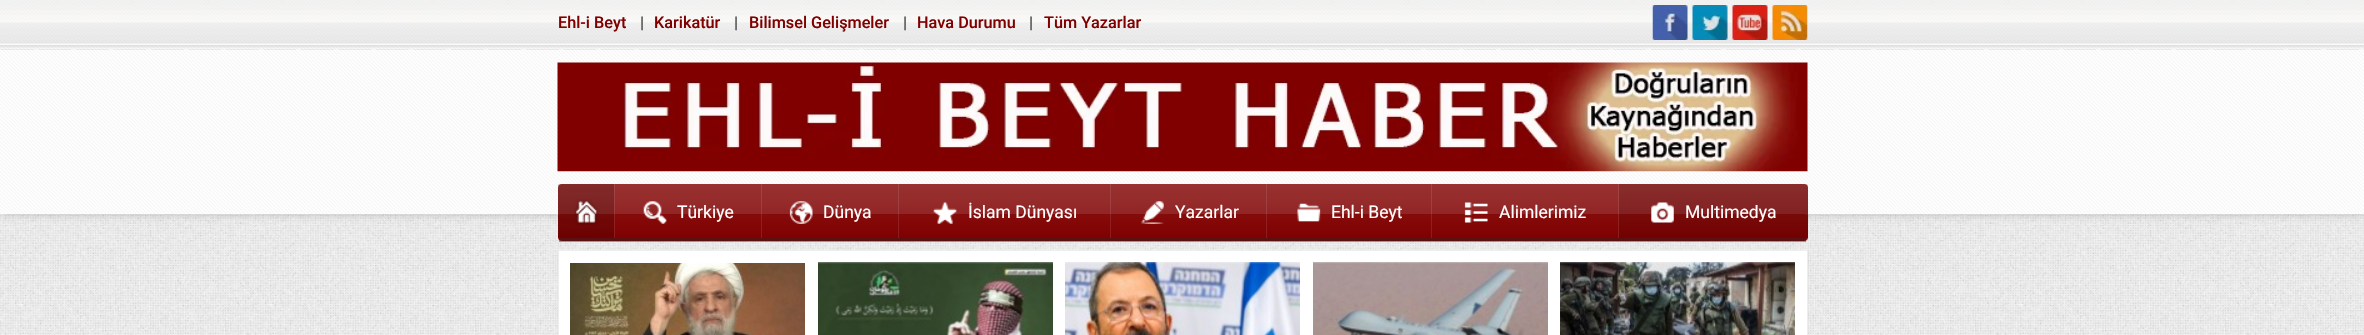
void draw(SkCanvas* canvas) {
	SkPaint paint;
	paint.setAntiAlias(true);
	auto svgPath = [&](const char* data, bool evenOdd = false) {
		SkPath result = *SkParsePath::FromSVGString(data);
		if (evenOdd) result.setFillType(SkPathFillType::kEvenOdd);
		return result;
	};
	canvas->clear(0xffffffff);
	canvas->drawImageRect(SkImages::DeferredFromEncodedData(SkData::MakeFromFileName("img1.png")), SkRect::MakeXYWH(0, 214, 2364, 121), SkSamplingOptions());
	paint.setColor(0x33000000);
	paint.setMaskFilter(SkMaskFilter::MakeBlur(kNormal_SkBlurStyle, 4));
	canvas->drawRect(SkRect::MakeXYWH(0, 0, 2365, 214), paint);
	paint.setMaskFilter(nullptr);
	paint.setColor(0xffffffff);
	canvas->drawRect(SkRect::MakeXYWH(0, 0, 2364, 214), paint);
	canvas->drawImageRect(SkImages::DeferredFromEncodedData(SkData::MakeFromFileName("img2.png")), SkRect::MakeXYWH(0, 0, 2364, 214), SkSamplingOptions());
	canvas->drawImageRect(SkImages::DeferredFromEncodedData(SkData::MakeFromFileName("img3.png")), SkRect::MakeXYWH(0, 0, 2364, 50), SkSamplingOptions());
	SkFont f1(fontMgr->matchFamilyStyle("Roboto", SkFontStyle(500, SkFontStyle::kNormal_Width, SkFontStyle::kUpright_Slant)), 16.25);
	f1.setSubpixel(true);
	paint.setColor(0xff800000);
	canvas->drawString("Ehl-i Beyt", 558, 28, f1, paint);
	SkFont f2(fontMgr->matchFamilyStyle("Roboto", SkFontStyle::Bold()), 16.25);
	f2.setSubpixel(true);
	paint.setColor(0xff515151);
	canvas->drawString("|", 640, 28, f2, paint);
	paint.setColor(0xff800000);
	canvas->drawString("Karikatür", 654, 28, f1, paint);
	paint.setColor(0xff515151);
	canvas->drawString("|", 734, 28, f2, paint);
	paint.setColor(0xff800000);
	canvas->drawString("Bilimsel Gelişmeler", 749, 28, f1, paint);
	paint.setColor(0xff515151);
	canvas->drawString("|", 903, 28, f2, paint);
	paint.setColor(0xff800000);
	canvas->drawString("Hava Durumu", 917, 28, f1, paint);
	paint.setColor(0xff515151);
	canvas->drawString("|", 1029, 28, f2, paint);
	paint.setColor(0xff800000);
	canvas->drawString("Tüm Yazarlar", 1044, 28, f1, paint);
	canvas->drawImageRect(SkImages::DeferredFromEncodedData(SkData::MakeFromFileName("img4.png")), SkRect::MakeXYWH(1652, 5, 36, 35), SkSamplingOptions());
	canvas->drawImageRect(SkImages::DeferredFromEncodedData(SkData::MakeFromFileName("img5.png")), SkRect::MakeXYWH(1692, 5, 36, 35), SkSamplingOptions());
	canvas->drawImageRect(SkImages::DeferredFromEncodedData(SkData::MakeFromFileName("img6.png")), SkRect::MakeXYWH(1732, 5, 36, 35), SkSamplingOptions());
	canvas->drawImageRect(SkImages::DeferredFromEncodedData(SkData::MakeFromFileName("img7.png")), SkRect::MakeXYWH(1772, 5, 36, 35), SkSamplingOptions());
	canvas->drawImageRect(SkImages::DeferredFromEncodedData(SkData::MakeFromFileName("img8.png")), SkRect::MakeXYWH(557, 62, 1251, 110), SkSamplingOptions());
	canvas->drawRoundRect(SkRect::MakeXYWH(558, 184, 1250, 57), 4, 4, paint);
	{
		const SkColor colors[] = {0x1affffff, 0x00ffffff};
		const float stops[] = {0, 1};
		const SkPoint ends[] = {{1183, 184}, {1183, 238}};
		paint.setShader(SkGradientShader::MakeLinear(ends, colors, stops, 2, SkTileMode::kClamp));
		paint.setAlpha(255);
	}
	canvas->drawPath(svgPath("M560.5 184H1805.5C1807 184 1808 185 1808 186.5V238H558V186.5C558 185 559 184 560.5 184Z"), paint);
	{
		const SkColor colors[] = {0x1affffff, 0x00ffffff};
		const float stops[] = {0, 1};
		const SkPoint ends[] = {{1183, 237}, {1183, 291}};
		paint.setShader(SkGradientShader::MakeLinear(ends, colors, stops, 2, SkTileMode::kClamp));
		paint.setAlpha(255);
	}
	canvas->drawPath(svgPath("M558 238H1808V238.5C1808 240 1807 241 1805.5 241H560.5C559 241 558 240 558 238.5Z"), paint);
	paint.setShader(nullptr);
	paint.setColor(0x1affffff);
	canvas->drawPath(svgPath("M560 214H1805L1808 215V186C1808 185 1806 184 1805 184H560C559 184 558 185 558 186V238V216C558 215 559 214 560 214Z"), paint);
	paint.setColor(0x59000000);
	canvas->drawRect(SkRect::MakeXYWH(559, 238, 1247, 4), paint);
	paint.setColor(0x26000000);
	canvas->drawRect(SkRect::MakeXYWH(558, 184, 56, 54), paint);
	canvas->drawImageRect(SkImages::DeferredFromEncodedData(SkData::MakeFromFileName("img9.png")), SkRect::MakeXYWH(574, 199, 25, 27), SkSamplingOptions());
	paint.setColor(0x1affffff);
	canvas->drawRect(SkRect::MakeXYWH(614, 184, 1, 54), paint);
	canvas->drawImageRect(SkImages::DeferredFromEncodedData(SkData::MakeFromFileName("img10.png")), SkRect::MakeXYWH(643, 201, 24, 23), SkSamplingOptions());
	SkFont f3(fontMgr->matchFamilyStyle("Roboto", SkFontStyle::Normal()), 17.5);
	f3.setSubpixel(true);
	paint.setColor(0xffffffff);
	canvas->drawString("Türkiye", 677, 218, f3, paint);
	paint.setColor(0x1affffff);
	canvas->drawRect(SkRect::MakeXYWH(761, 184, 1, 54), paint);
	canvas->drawImageRect(SkImages::DeferredFromEncodedData(SkData::MakeFromFileName("img11.png")), SkRect::MakeXYWH(789, 201, 24, 23), SkSamplingOptions());
	paint.setColor(0xffffffff);
	canvas->drawString("Dünya", 823, 218, f3, paint);
	paint.setColor(0x1affffff);
	canvas->drawRect(SkRect::MakeXYWH(898, 184, 1, 54), paint);
	canvas->drawImageRect(SkImages::DeferredFromEncodedData(SkData::MakeFromFileName("img12.png")), SkRect::MakeXYWH(933, 202, 24, 22), SkSamplingOptions());
	paint.setColor(0xffffffff);
	canvas->drawString("İslam Dünyası", 968, 218, f3, paint);
	paint.setColor(0x1affffff);
	canvas->drawRect(SkRect::MakeXYWH(1110, 184, 1, 54), paint);
	canvas->drawImageRect(SkImages::DeferredFromEncodedData(SkData::MakeFromFileName("img13.png")), SkRect::MakeXYWH(1141, 201, 23, 23), SkSamplingOptions());
	paint.setColor(0xffffffff);
	canvas->drawString("Yazarlar", 1175, 218, f3, paint);
	paint.setColor(0x1affffff);
	canvas->drawRect(SkRect::MakeXYWH(1266, 184, 1, 54), paint);
	canvas->drawImageRect(SkImages::DeferredFromEncodedData(SkData::MakeFromFileName("img14.png")), SkRect::MakeXYWH(1297, 203, 24, 19), SkSamplingOptions());
	paint.setColor(0xffffffff);
	canvas->drawString("Ehl-i Beyt", 1331, 218, f3, paint);
	paint.setColor(0x1affffff);
	canvas->drawRect(SkRect::MakeXYWH(1431, 184, 1, 54), paint);
	canvas->drawImageRect(SkImages::DeferredFromEncodedData(SkData::MakeFromFileName("img15.png")), SkRect::MakeXYWH(1464, 202, 24, 21), SkSamplingOptions());
	paint.setColor(0xffffffff);
	canvas->drawString("Alimlerimiz", 1499, 218, f3, paint);
	paint.setColor(0x1affffff);
	canvas->drawRect(SkRect::MakeXYWH(1618, 184, 1, 54), paint);
	paint.setColor(0x1a000000);
	canvas->drawRect(SkRect::MakeXYWH(1619, 184, 189, 54), paint);
	canvas->drawImageRect(SkImages::DeferredFromEncodedData(SkData::MakeFromFileName("img16.png")), SkRect::MakeXYWH(1651, 202, 23, 21), SkSamplingOptions());
	paint.setColor(0xffffffff);
	canvas->drawString("Multimedya", 1685, 218, f3, paint);
	paint.setColor(0xffd3d3d3);
	paint.setMaskFilter(SkMaskFilter::MakeBlur(kNormal_SkBlurStyle, 0.5));
	canvas->drawRect(SkRect::MakeXYWH(558, 251, 1250, 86), paint);
	paint.setMaskFilter(nullptr);
	paint.setColor(0xffffffff);
	canvas->drawRect(SkRect::MakeXYWH(558.5, 250.5, 1249, 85), paint);
	paint.setStroke(true);
	paint.setStrokeWidth(1);
	paint.setColor(0xffededed);
	canvas->drawRect(SkRect::MakeXYWH(558.5, 250.5, 1249, 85), paint);
	canvas->drawImageRect(SkImages::DeferredFromEncodedData(SkData::MakeFromFileName("img17.png")), SkRect::MakeXYWH(570, 263, 235, 72), SkSamplingOptions());
	canvas->drawImageRect(SkImages::DeferredFromEncodedData(SkData::MakeFromFileName("img18.png")), SkRect::MakeXYWH(818, 262, 235, 73), SkSamplingOptions());
	canvas->drawImageRect(SkImages::DeferredFromEncodedData(SkData::MakeFromFileName("img19.png")), SkRect::MakeXYWH(1065, 262, 235, 73), SkSamplingOptions());
	canvas->drawImageRect(SkImages::DeferredFromEncodedData(SkData::MakeFromFileName("img20.png")), SkRect::MakeXYWH(1313, 262, 235, 73), SkSamplingOptions());
	canvas->drawImageRect(SkImages::DeferredFromEncodedData(SkData::MakeFromFileName("img21.png")), SkRect::MakeXYWH(1560, 262, 235, 73), SkSamplingOptions());
}
